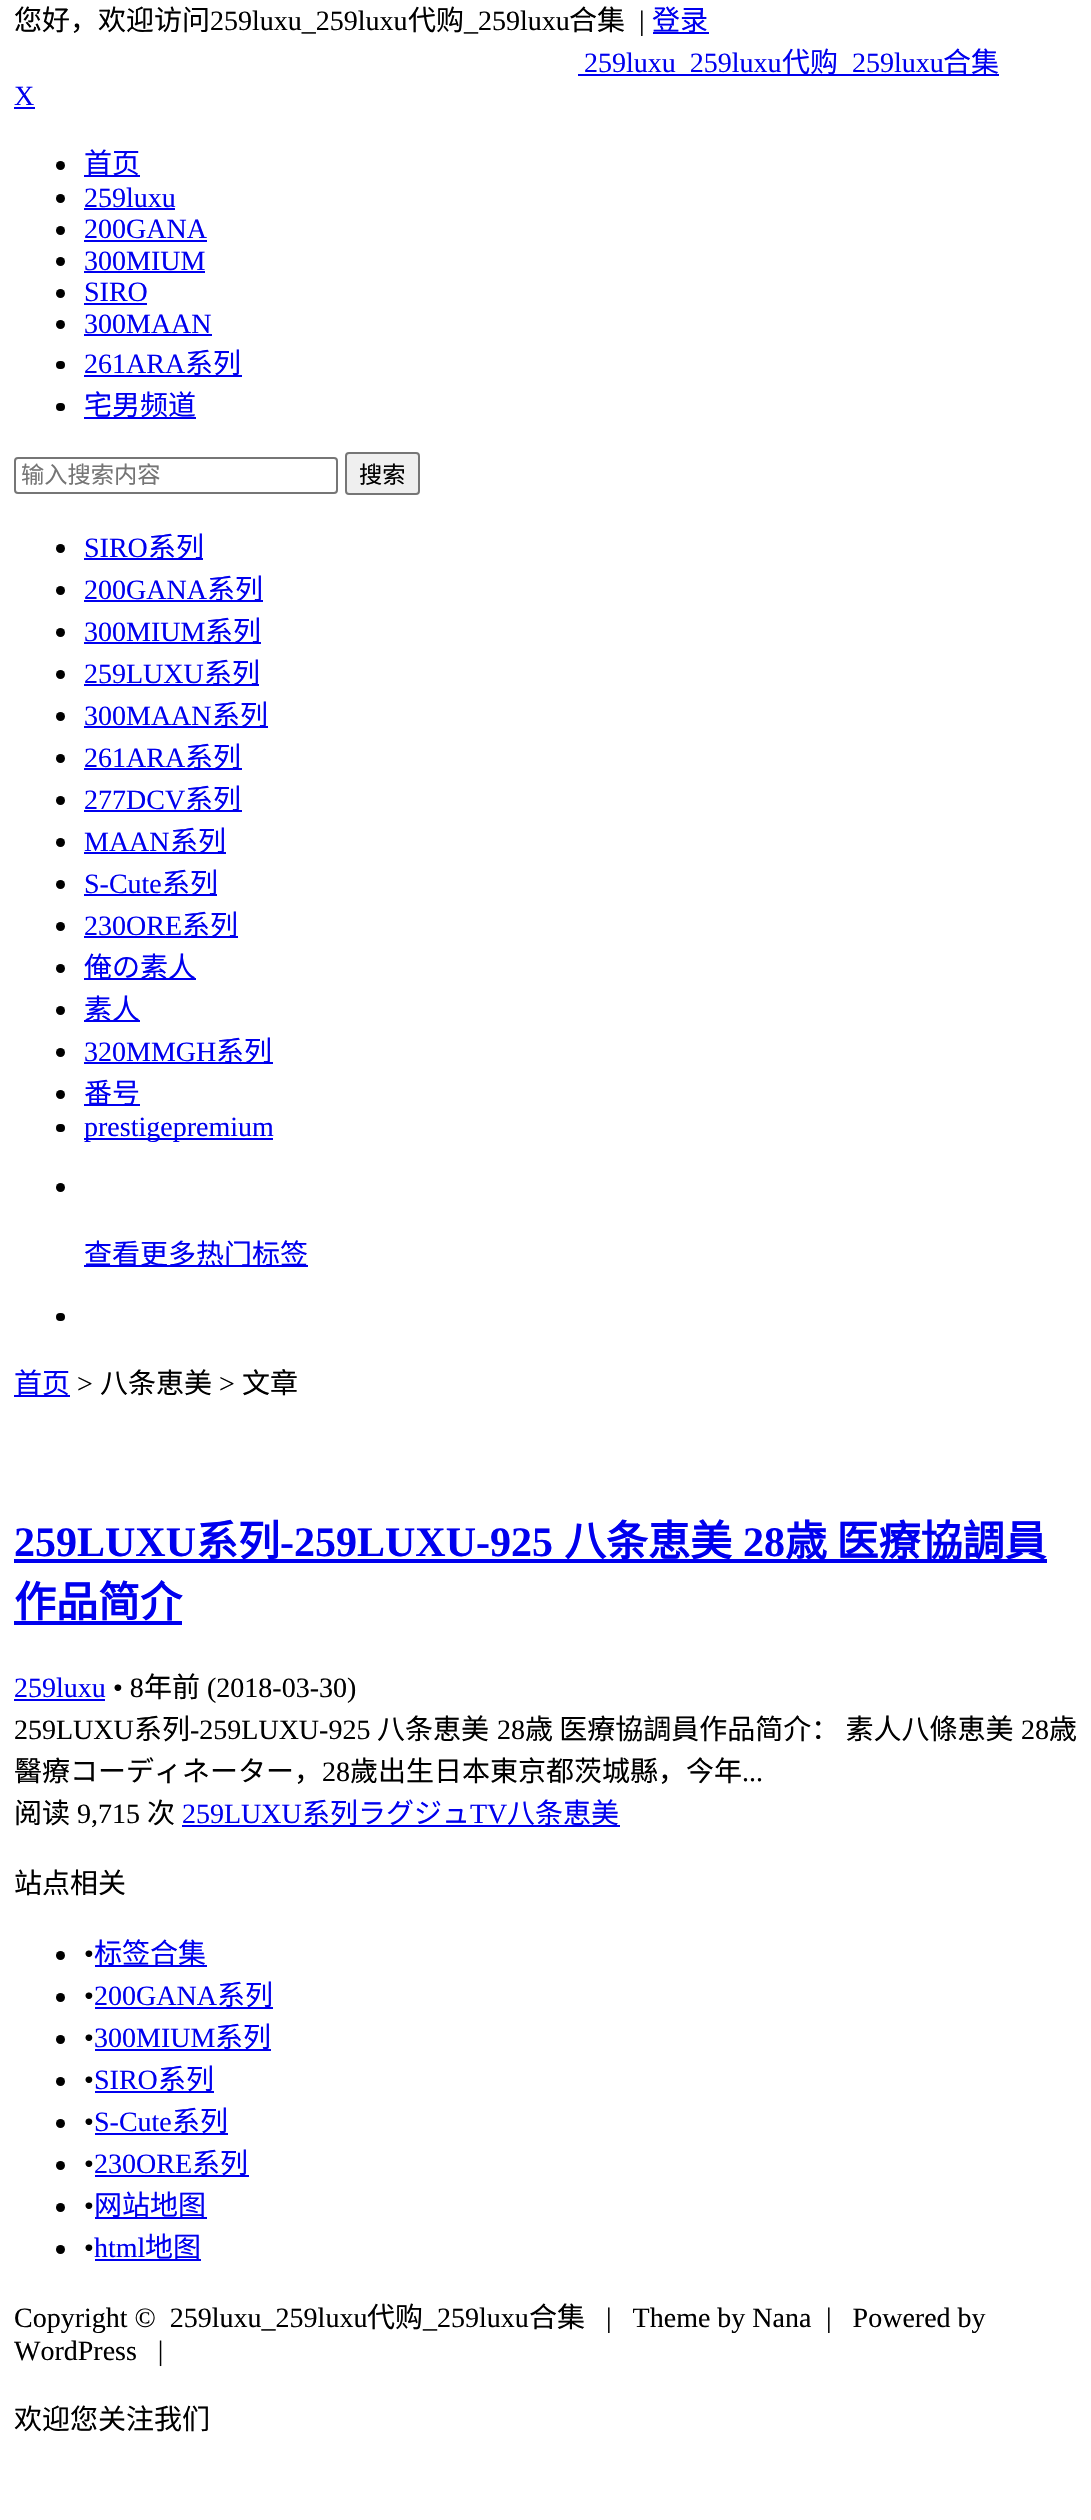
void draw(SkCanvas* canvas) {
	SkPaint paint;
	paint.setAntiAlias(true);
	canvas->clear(0xffffffff);
	SkFont f1(fontMgr->matchFamilyStyle("Noto Sans CJK SC", SkFontStyle::Normal()), 28);
	f1.setSubpixel(true);
	paint.setColor(0xff000000);
	canvas->drawString("您好，欢迎访问", 14, 30, f1, paint);
	SkFont f2(fontMgr->matchFamilyStyle("Liberation Serif", SkFontStyle::Normal()), 28);
	f2.setSubpixel(true);
	canvas->drawString("259luxu_259luxu", 210, 30, f2, paint);
	canvas->drawString("代购", 408, 30, f1, paint);
	canvas->drawString("_259luxu", 464, 30, f2, paint);
	canvas->drawString("合集", 569, 30, f1, paint);
	canvas->drawString("|", 639, 30, f2, paint);
	paint.setColor(0xff0000ee);
	canvas->drawRect(SkRect::MakeXYWH(653, 32, 56, 2), paint);
	canvas->drawString("登录", 652, 30, f1, paint);
	canvas->drawRect(SkRect::MakeXYWH(578, 74, 421, 2), paint);
	canvas->drawString("259luxu_259luxu", 584, 72, f2, paint);
	canvas->drawString("代购", 782, 72, f1, paint);
	canvas->drawString("259luxu", 852, 72, f2, paint);
	canvas->drawString("合集", 943, 72, f1, paint);
	canvas->drawString("X", 14, 105, f2, paint);
	canvas->drawRect(SkRect::MakeXYWH(14, 107, 21, 2), paint);
	paint.setColor(0xff000000);
	canvas->drawCircle(60.5, 165.5, 4.5, paint);
	paint.setColor(0xff0000ee);
	canvas->drawRect(SkRect::MakeXYWH(84, 175, 56, 2), paint);
	canvas->drawString("首页", 84, 173, f1, paint);
	paint.setColor(0xff000000);
	canvas->drawCircle(60.5, 198.5, 4.5, paint);
	paint.setColor(0xff0000ee);
	canvas->drawString("259luxu", 84, 207, f2, paint);
	canvas->drawRect(SkRect::MakeXYWH(84, 208, 91, 2), paint);
	paint.setColor(0xff000000);
	canvas->drawCircle(60.5, 230.5, 4.5, paint);
	paint.setColor(0xff0000ee);
	canvas->drawString("200GANA", 84, 238, f2, paint);
	canvas->drawRect(SkRect::MakeXYWH(84, 240, 123, 2), paint);
	paint.setColor(0xff000000);
	canvas->drawCircle(60.5, 261.5, 4.5, paint);
	paint.setColor(0xff0000ee);
	canvas->drawString("300MIUM", 84, 270, f2, paint);
	canvas->drawRect(SkRect::MakeXYWH(84, 271, 121, 2), paint);
	paint.setColor(0xff000000);
	canvas->drawCircle(60.5, 293.5, 4.5, paint);
	paint.setColor(0xff0000ee);
	canvas->drawString("SIRO", 84, 301, f2, paint);
	canvas->drawRect(SkRect::MakeXYWH(84, 303, 63, 2), paint);
	paint.setColor(0xff000000);
	canvas->drawCircle(60.5, 324.5, 4.5, paint);
	paint.setColor(0xff0000ee);
	canvas->drawString("300MAAN", 84, 333, f2, paint);
	canvas->drawRect(SkRect::MakeXYWH(84, 334, 128, 2), paint);
	paint.setColor(0xff000000);
	canvas->drawRoundRect(SkRect::MakeXYWH(56, 361, 9, 8), 4, 4, paint);
	paint.setColor(0xff0000ee);
	canvas->drawString("261ARA", 84, 373, f2, paint);
	canvas->drawRect(SkRect::MakeXYWH(84, 375, 158, 2), paint);
	canvas->drawString("系列", 185, 373, f1, paint);
	paint.setColor(0xff000000);
	canvas->drawRoundRect(SkRect::MakeXYWH(56, 403, 9, 8), 4, 4, paint);
	paint.setColor(0xff0000ee);
	canvas->drawRect(SkRect::MakeXYWH(84, 417, 112, 2), paint);
	canvas->drawString("宅男频道", 84, 415, f1, paint);
	paint.setStroke(true);
	paint.setStrokeWidth(2);
	paint.setColor(0xff767676);
	canvas->drawRoundRect(SkRect::MakeXYWH(15, 458, 322, 35), 3, 3, paint);
	SkFont f3(fontMgr->matchFamilyStyle("Noto Sans CJK SC", SkFontStyle::Normal()), 23.25);
	f3.setSubpixel(true);
	paint.setStroke(false);
	paint.setColor(0xff757575);
	canvas->drawString("输入搜索内容", 21, 483, f3, paint);
	paint.setColor(0xffefefef);
	canvas->drawRoundRect(SkRect::MakeXYWH(346, 453, 73, 41), 3, 3, paint);
	paint.setStroke(true);
	paint.setColor(0xff767676);
	canvas->drawRoundRect(SkRect::MakeXYWH(346, 453, 73, 41), 3, 3, paint);
	paint.setStroke(false);
	paint.setColor(0xff000000);
	canvas->drawString("搜索", 359, 483, f3, paint);
	canvas->drawCircle(60.5, 548.5, 4.5, paint);
	paint.setColor(0xff0000ee);
	canvas->drawString("SIRO", 84, 557, f2, paint);
	canvas->drawRect(SkRect::MakeXYWH(84, 558, 119, 2), paint);
	canvas->drawString("系列", 148, 557, f1, paint);
	paint.setColor(0xff000000);
	canvas->drawCircle(60.5, 590.5, 4.5, paint);
	paint.setColor(0xff0000ee);
	canvas->drawString("200GANA", 84, 599, f2, paint);
	canvas->drawRect(SkRect::MakeXYWH(84, 600, 179, 2), paint);
	canvas->drawString("系列", 207, 599, f1, paint);
	paint.setColor(0xff000000);
	canvas->drawCircle(60.5, 632.5, 4.5, paint);
	paint.setColor(0xff0000ee);
	canvas->drawString("300MIUM", 84, 641, f2, paint);
	canvas->drawRect(SkRect::MakeXYWH(84, 642, 177, 2), paint);
	canvas->drawString("系列", 205, 641, f1, paint);
	paint.setColor(0xff000000);
	canvas->drawCircle(60.5, 674.5, 4.5, paint);
	paint.setColor(0xff0000ee);
	canvas->drawString("259LUXU", 84, 683, f2, paint);
	canvas->drawRect(SkRect::MakeXYWH(84, 684, 175, 2), paint);
	canvas->drawString("系列", 204, 683, f1, paint);
	paint.setColor(0xff000000);
	canvas->drawCircle(60.5, 716.5, 4.5, paint);
	paint.setColor(0xff0000ee);
	canvas->drawString("300MAAN", 84, 725, f2, paint);
	canvas->drawRect(SkRect::MakeXYWH(84, 726, 184, 2), paint);
	canvas->drawString("系列", 212, 725, f1, paint);
	paint.setColor(0xff000000);
	canvas->drawCircle(60.5, 758.5, 4.5, paint);
	paint.setColor(0xff0000ee);
	canvas->drawString("261ARA", 84, 767, f2, paint);
	canvas->drawRect(SkRect::MakeXYWH(84, 768, 158, 2), paint);
	canvas->drawString("系列", 185, 767, f1, paint);
	paint.setColor(0xff000000);
	canvas->drawCircle(60.5, 800.5, 4.5, paint);
	paint.setColor(0xff0000ee);
	canvas->drawString("277DCV", 84, 809, f2, paint);
	canvas->drawRect(SkRect::MakeXYWH(84, 810, 158, 2), paint);
	canvas->drawString("系列", 185, 809, f1, paint);
	paint.setColor(0xff000000);
	canvas->drawCircle(60.5, 842.5, 4.5, paint);
	paint.setColor(0xff0000ee);
	canvas->drawString("MAAN", 84, 851, f2, paint);
	canvas->drawRect(SkRect::MakeXYWH(84, 852, 142, 2), paint);
	canvas->drawString("系列", 170, 851, f1, paint);
	paint.setColor(0xff000000);
	canvas->drawCircle(60.5, 884.5, 4.5, paint);
	paint.setColor(0xff0000ee);
	canvas->drawString("S-Cute", 84, 893, f2, paint);
	canvas->drawRect(SkRect::MakeXYWH(84, 894, 133, 2), paint);
	canvas->drawString("系列", 162, 893, f1, paint);
	paint.setColor(0xff000000);
	canvas->drawCircle(60.5, 926.5, 4.5, paint);
	paint.setColor(0xff0000ee);
	canvas->drawString("230ORE", 84, 935, f2, paint);
	canvas->drawRect(SkRect::MakeXYWH(84, 936, 154, 2), paint);
	canvas->drawString("系列", 182, 935, f1, paint);
	paint.setColor(0xff000000);
	canvas->drawCircle(60.5, 968.5, 4.5, paint);
	paint.setColor(0xff0000ee);
	canvas->drawRect(SkRect::MakeXYWH(84, 978, 112, 2), paint);
	canvas->drawString("俺の素人", 84, 977, f1, paint);
	paint.setColor(0xff000000);
	canvas->drawCircle(60.5, 1010.5, 4.5, paint);
	paint.setColor(0xff0000ee);
	canvas->drawRect(SkRect::MakeXYWH(84, 1020, 56, 2), paint);
	canvas->drawString("素人", 84, 1019, f1, paint);
	paint.setColor(0xff000000);
	canvas->drawCircle(60.5, 1052.5, 4.5, paint);
	paint.setColor(0xff0000ee);
	canvas->drawString("320MMGH", 84, 1061, f2, paint);
	canvas->drawRect(SkRect::MakeXYWH(84, 1062, 189, 2), paint);
	canvas->drawString("系列", 216, 1061, f1, paint);
	paint.setColor(0xff000000);
	canvas->drawCircle(60.5, 1094.5, 4.5, paint);
	paint.setColor(0xff0000ee);
	canvas->drawRect(SkRect::MakeXYWH(84, 1104, 56, 2), paint);
	canvas->drawString("番号", 84, 1103, f1, paint);
	paint.setColor(0xff000000);
	canvas->drawRoundRect(SkRect::MakeXYWH(56, 1124, 9, 8), 4, 4, paint);
	paint.setColor(0xff0000ee);
	canvas->drawRect(SkRect::MakeXYWH(84, 1138, 189, 2), paint);
	canvas->drawString("prestigepremium", 84, 1136, f2, paint);
	paint.setColor(0xff000000);
	canvas->drawCircle(60.5, 1187.5, 4.5, paint);
	paint.setColor(0xff0000ee);
	canvas->drawRect(SkRect::MakeXYWH(84, 1265, 224, 2), paint);
	canvas->drawString("查看更多热门标签", 84, 1264, f1, paint);
	paint.setColor(0xff000000);
	canvas->drawRoundRect(SkRect::MakeXYWH(56, 1313, 9, 8), 4, 4, paint);
	paint.setColor(0xff0000ee);
	canvas->drawRect(SkRect::MakeXYWH(14, 1395, 56, 2), paint);
	canvas->drawString("首页", 14, 1393, f1, paint);
	paint.setColor(0xff000000);
	canvas->drawString(">", 77, 1393, f2, paint);
	canvas->drawString("八条恵美", 100, 1393, f1, paint);
	canvas->drawString(">", 219, 1393, f2, paint);
	canvas->drawString("文章", 242, 1393, f1, paint);
	SkFont f4(fontMgr->matchFamilyStyle("Liberation Serif", SkFontStyle::Bold()), 42);
	f4.setSubpixel(true);
	paint.setColor(0xff0000ee);
	canvas->drawString("259LUXU", 14, 1556, f4, paint);
	canvas->drawRect(SkRect::MakeXYWH(14, 1559, 1033, 4), paint);
	SkFont f5(fontMgr->matchFamilyStyle("Noto Sans CJK SC", SkFontStyle::Bold()), 42);
	f5.setSubpixel(true);
	canvas->drawString("系列", 196, 1556, f5, paint);
	canvas->drawString("-259LUXU-925", 280, 1556, f4, paint);
	canvas->drawString("八条恵美", 564, 1556, f5, paint);
	canvas->drawString("28", 743, 1556, f4, paint);
	canvas->drawString("歳 医療協調員", 785, 1556, f5, paint);
	canvas->drawString("作品简介", 14, 1617, f5, paint);
	canvas->drawRect(SkRect::MakeXYWH(14, 1621, 168, 4), paint);
	canvas->drawString("259luxu", 14, 1697, f2, paint);
	canvas->drawRect(SkRect::MakeXYWH(14, 1699, 91, 2), paint);
	paint.setColor(0xff000000);
	canvas->drawString("• 8", 113, 1697, f2, paint);
	canvas->drawString("年前", 144, 1697, f1, paint);
	canvas->drawString("(2018-03-30)", 207, 1697, f2, paint);
	canvas->drawString("259LUXU", 14, 1739, f2, paint);
	canvas->drawString("系列", 134, 1739, f1, paint);
	canvas->drawString("-259LUXU-925", 190, 1739, f2, paint);
	canvas->drawString("八条恵美", 377, 1739, f1, paint);
	canvas->drawString("28", 497, 1739, f2, paint);
	canvas->drawString("歳 医療協調員作品简介： 素人八條恵美", 525, 1739, f1, paint);
	canvas->drawString("28", 1021, 1739, f2, paint);
	canvas->drawString("歳", 1049, 1739, f1, paint);
	canvas->drawString("醫療コーディネーター，", 14, 1781, f1, paint);
	canvas->drawString("28", 322, 1781, f2, paint);
	canvas->drawString("歲出生日本東京都茨城縣，今年", 350, 1781, f1, paint);
	canvas->drawString("...", 742, 1781, f2, paint);
	canvas->drawString("阅读", 14, 1823, f1, paint);
	canvas->drawString("9,715", 77, 1823, f2, paint);
	canvas->drawString("次", 147, 1823, f1, paint);
	paint.setColor(0xff0000ee);
	canvas->drawString("259LUXU", 182, 1823, f2, paint);
	canvas->drawRect(SkRect::MakeXYWH(182, 1825, 438, 2), paint);
	canvas->drawString("系列ラグジュ", 302, 1823, f1, paint);
	canvas->drawString("TV", 470, 1823, f2, paint);
	canvas->drawString("八条恵美", 507, 1823, f1, paint);
	paint.setColor(0xff000000);
	canvas->drawString("站点相关", 14, 1893, f1, paint);
	canvas->drawCircle(60.5, 1955.5, 4.5, paint);
	canvas->drawString("•", 84, 1963, f2, paint);
	paint.setColor(0xff0000ee);
	canvas->drawRect(SkRect::MakeXYWH(95, 1965, 112, 2), paint);
	canvas->drawString("标签合集", 94, 1963, f1, paint);
	paint.setColor(0xff000000);
	canvas->drawCircle(60.5, 1997.5, 4.5, paint);
	canvas->drawString("•", 84, 2005, f2, paint);
	paint.setColor(0xff0000ee);
	canvas->drawString("200GANA", 94, 2005, f2, paint);
	canvas->drawRect(SkRect::MakeXYWH(95, 2007, 178, 2), paint);
	canvas->drawString("系列", 217, 2005, f1, paint);
	paint.setColor(0xff000000);
	canvas->drawCircle(60.5, 2039.5, 4.5, paint);
	canvas->drawString("•", 84, 2047, f2, paint);
	paint.setColor(0xff0000ee);
	canvas->drawString("300MIUM", 94, 2047, f2, paint);
	canvas->drawRect(SkRect::MakeXYWH(95, 2049, 176, 2), paint);
	canvas->drawString("系列", 215, 2047, f1, paint);
	paint.setColor(0xff000000);
	canvas->drawCircle(60.5, 2081.5, 4.5, paint);
	canvas->drawString("•", 84, 2089, f2, paint);
	paint.setColor(0xff0000ee);
	canvas->drawString("SIRO", 94, 2089, f2, paint);
	canvas->drawRect(SkRect::MakeXYWH(95, 2091, 119, 2), paint);
	canvas->drawString("系列", 158, 2089, f1, paint);
	paint.setColor(0xff000000);
	canvas->drawCircle(60.5, 2123.5, 4.5, paint);
	canvas->drawString("•", 84, 2131, f2, paint);
	paint.setColor(0xff0000ee);
	canvas->drawString("S-Cute", 94, 2131, f2, paint);
	canvas->drawRect(SkRect::MakeXYWH(95, 2133, 133, 2), paint);
	canvas->drawString("系列", 172, 2131, f1, paint);
	paint.setColor(0xff000000);
	canvas->drawCircle(60.5, 2165.5, 4.5, paint);
	canvas->drawString("•", 84, 2173, f2, paint);
	paint.setColor(0xff0000ee);
	canvas->drawString("230ORE", 94, 2173, f2, paint);
	canvas->drawRect(SkRect::MakeXYWH(95, 2175, 154, 2), paint);
	canvas->drawString("系列", 192, 2173, f1, paint);
	paint.setColor(0xff000000);
	canvas->drawCircle(60.5, 2207.5, 4.5, paint);
	canvas->drawString("•", 84, 2215, f2, paint);
	paint.setColor(0xff0000ee);
	canvas->drawRect(SkRect::MakeXYWH(95, 2217, 112, 2), paint);
	canvas->drawString("网站地图", 94, 2215, f1, paint);
	paint.setColor(0xff000000);
	canvas->drawCircle(60.5, 2249.5, 4.5, paint);
	canvas->drawString("•", 84, 2257, f2, paint);
	paint.setColor(0xff0000ee);
	canvas->drawString("html", 94, 2257, f2, paint);
	canvas->drawRect(SkRect::MakeXYWH(95, 2259, 106, 2), paint);
	canvas->drawString("地图", 145, 2257, f1, paint);
	paint.setColor(0xff000000);
	canvas->drawString("Copyright ©  259luxu_259luxu", 14, 2327, f2, paint);
	canvas->drawString("代购", 367, 2327, f1, paint);
	canvas->drawString("_259luxu", 423, 2327, f2, paint);
	canvas->drawString("合集", 529, 2327, f1, paint);
	canvas->drawString("|   Theme by Nana", 606, 2327, f2, paint);
	canvas->drawString("|   Powered by", 826, 2327, f2, paint);
	canvas->drawString("WordPress   |", 14, 2360, f2, paint);
	canvas->drawString("欢迎您关注我们", 14, 2429, f1, paint);
}
